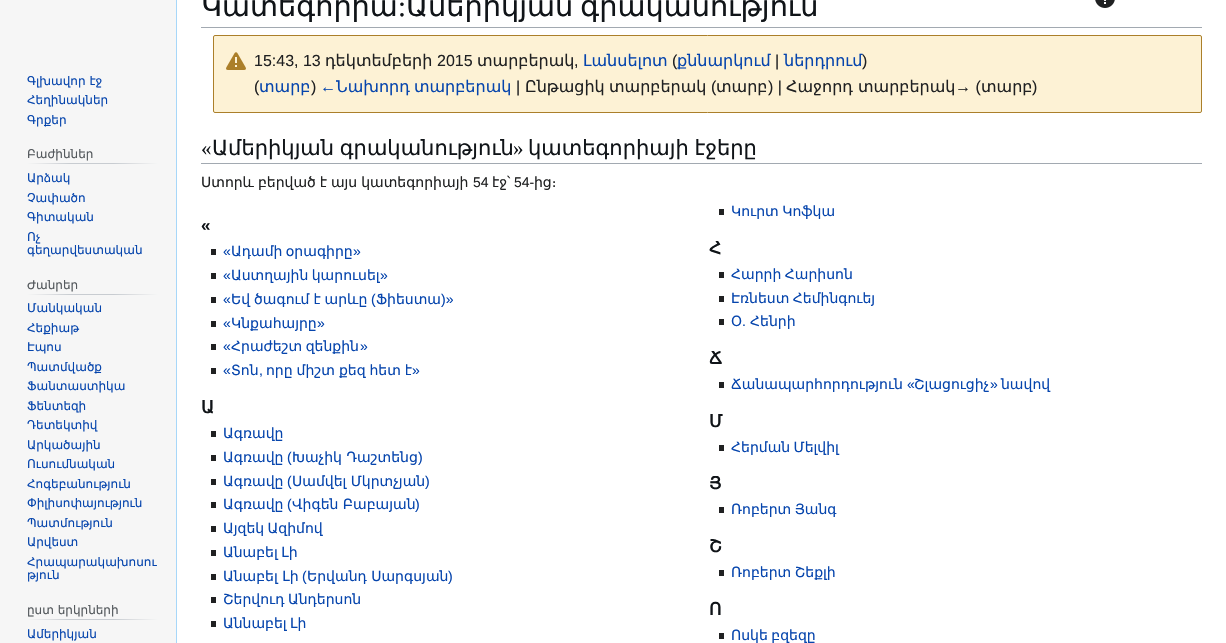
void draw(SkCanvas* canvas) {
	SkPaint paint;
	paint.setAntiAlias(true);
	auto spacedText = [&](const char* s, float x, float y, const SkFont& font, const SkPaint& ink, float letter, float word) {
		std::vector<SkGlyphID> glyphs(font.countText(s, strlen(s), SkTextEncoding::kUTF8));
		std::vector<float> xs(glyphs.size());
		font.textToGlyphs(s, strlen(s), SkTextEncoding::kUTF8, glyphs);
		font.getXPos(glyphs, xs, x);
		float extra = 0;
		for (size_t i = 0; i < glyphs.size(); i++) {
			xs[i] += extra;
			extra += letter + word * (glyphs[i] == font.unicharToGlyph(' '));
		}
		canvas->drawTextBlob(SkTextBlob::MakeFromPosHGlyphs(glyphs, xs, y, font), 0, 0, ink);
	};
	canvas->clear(0xfff6f6f6);
	SkFont f1(fontMgr->matchFamilyStyle("DejaVu Sans", SkFontStyle::Normal()), 12);
	f1.setSubpixel(true);
	paint.setColor(0xff0645ad);
	canvas->drawString("Գլխավոր էջ", 27, 85, f1, paint);
	canvas->drawString("Հեղինակներ", 27, 104, f1, paint);
	canvas->drawString("Գրքեր", 27, 124, f1, paint);
	{
		const SkColor colors[] = {0xfff6f6f6, 0xffc8ccd1, 0xffc8ccd1, 0xfff6f6f6};
		const float stops[] = {0, 0.33, 0.66, 1};
		const SkPoint ends[] = {{27, 164}, {158, 164}};
		paint.setShader(SkGradientShader::MakeLinear(ends, colors, stops, 4, SkTileMode::kClamp));
		paint.setAlpha(255);
	}
	canvas->drawRect(SkRect::MakeXYWH(27, 163, 131, 1), paint);
	paint.setShader(nullptr);
	paint.setColor(0xff54595d);
	canvas->drawString("Բաժիններ", 27, 158, f1, paint);
	paint.setColor(0xff0645ad);
	canvas->drawString("Արձակ", 27, 182, f1, paint);
	canvas->drawString("Չափածո", 27, 202, f1, paint);
	canvas->drawString("Գիտական", 27, 221, f1, paint);
	canvas->drawString("Ոչ", 27, 241, f1, paint);
	canvas->drawString("գեղարվեստական", 27, 254, f1, paint);
	{
		const SkColor colors[] = {0xfff6f6f6, 0xffc8ccd1, 0xffc8ccd1, 0xfff6f6f6};
		const float stops[] = {0, 0.33, 0.66, 1};
		const SkPoint ends[] = {{27, 295}, {158, 295}};
		paint.setShader(SkGradientShader::MakeLinear(ends, colors, stops, 4, SkTileMode::kClamp));
		paint.setAlpha(255);
	}
	canvas->drawRect(SkRect::MakeXYWH(27, 294, 131, 1), paint);
	paint.setShader(nullptr);
	paint.setColor(0xff54595d);
	canvas->drawString("Ժանրեր", 27, 289, f1, paint);
	paint.setColor(0xff0645ad);
	canvas->drawString("Մանկական", 27, 312, f1, paint);
	canvas->drawString("Հեքիաթ", 27, 332, f1, paint);
	canvas->drawString("Էպոս", 27, 351, f1, paint);
	canvas->drawString("Պատմվածք", 27, 371, f1, paint);
	canvas->drawString("Ֆանտաստիկա", 27, 390, f1, paint);
	canvas->drawString("Ֆենտեզի", 27, 410, f1, paint);
	canvas->drawString("Դետեկտիվ", 27, 429, f1, paint);
	canvas->drawString("Արկածային", 27, 449, f1, paint);
	canvas->drawString("Ուսումնական", 27, 468, f1, paint);
	canvas->drawString("Հոգեբանություն", 27, 488, f1, paint);
	canvas->drawString("Փիլիսոփայություն", 27, 507, f1, paint);
	canvas->drawString("Պատմություն", 27, 527, f1, paint);
	canvas->drawString("Արվեստ", 27, 546, f1, paint);
	canvas->drawString("Հրապարակախոսու", 27, 566, f1, paint);
	canvas->drawString("թյուն", 27, 579, f1, paint);
	{
		const SkColor colors[] = {0xfff6f6f6, 0xffc8ccd1, 0xffc8ccd1, 0xfff6f6f6};
		const float stops[] = {0, 0.33, 0.66, 1};
		const SkPoint ends[] = {{27, 620}, {158, 620}};
		paint.setShader(SkGradientShader::MakeLinear(ends, colors, stops, 4, SkTileMode::kClamp));
		paint.setAlpha(255);
	}
	canvas->drawRect(SkRect::MakeXYWH(27, 619, 131, 1), paint);
	paint.setShader(nullptr);
	paint.setColor(0xff54595d);
	canvas->drawString("ըստ երկրների", 27, 614, f1, paint);
	paint.setColor(0xff0645ad);
	canvas->drawString("Ամերիկյան", 27, 638, f1, paint);
	paint.setColor(0xffffffff);
	canvas->drawRect(SkRect::MakeXYWH(177, 0, 1049, 643), paint);
	paint.setColor(0xffa7d7f9);
	canvas->drawRect(SkRect::MakeXYWH(176, 0, 1, 643), paint);
	paint.setColor(0xffa2a9b1);
	canvas->drawRect(SkRect::MakeXYWH(201, 27, 1001, 1), paint);
	SkFont f2(fontMgr->matchFamilyStyle("DejaVu Sans", SkFontStyle::Normal()), 28.75);
	f2.setSubpixel(true);
	paint.setColor(0xff101418);
	canvas->drawString("Կատեգորիա", 201, 16, f2, paint);
	SkFont f3(fontMgr->matchFamilyStyle("Liberation Serif", SkFontStyle::Normal()), 28.75);
	f3.setSubpixel(true);
	canvas->drawString(":", 398, 16, f3, paint);
	spacedText("Ամերիկյան գրականություն", 406, 16, f2, paint, 0, -2);
	canvas->drawImageRect(SkImages::DeferredFromEncodedData(SkData::MakeFromFileName("img1.png")), SkRect::MakeXYWH(1095, 0, 20, 8), SkSamplingOptions());
	paint.setColor(0xfffdf2d5);
	canvas->drawRoundRect(SkRect::MakeXYWH(213.5, 35.5, 988, 77), 1.5, 1.5, paint);
	paint.setStroke(true);
	paint.setStrokeWidth(1);
	paint.setColor(0xffab7f2a);
	canvas->drawRoundRect(SkRect::MakeXYWH(213.5, 35.5, 988, 77), 1.5, 1.5, paint);
	canvas->drawImageRect(SkImages::DeferredFromEncodedData(SkData::MakeFromFileName("img2.png")), SkRect::MakeXYWH(226, 52, 20, 18), SkSamplingOptions());
	SkFont f4(fontMgr->matchFamilyStyle("Liberation Sans", SkFontStyle::Normal()), 16);
	f4.setSubpixel(true);
	paint.setStroke(false);
	paint.setColor(0xff202122);
	canvas->drawString("15:43, 13", 254, 66, f4, paint);
	SkFont f5(fontMgr->matchFamilyStyle("DejaVu Sans", SkFontStyle::Normal()), 16);
	f5.setSubpixel(true);
	canvas->drawString("դեկտեմբերի", 325, 66, f5, paint);
	canvas->drawString("2015", 437, 66, f4, paint);
	canvas->drawString("տարբերակ", 477, 66, f5, paint);
	canvas->drawString(",", 574, 66, f4, paint);
	paint.setColor(0xff0645ad);
	canvas->drawString("Լանսելոտ", 583, 66, f5, paint);
	paint.setColor(0xff202122);
	canvas->drawString("(", 672, 66, f4, paint);
	paint.setColor(0xff0645ad);
	canvas->drawString("քննարկում", 677, 66, f5, paint);
	paint.setColor(0xff202122);
	canvas->drawString("|", 775, 66, f4, paint);
	paint.setColor(0xff0645ad);
	canvas->drawString("ներդրում", 784, 66, f5, paint);
	paint.setColor(0xff202122);
	canvas->drawString(")", 862, 66, f4, paint);
	canvas->drawString("(", 254, 92, f4, paint);
	paint.setColor(0xff0645ad);
	canvas->drawString("տարբ", 259, 92, f5, paint);
	paint.setColor(0xff202122);
	canvas->drawString(")", 311, 92, f4, paint);
	paint.setColor(0xff0645ad);
	canvas->drawString("←", 320, 92, f4, paint);
	spacedText("Նախորդ տարբերակ", 336, 92, f5, paint, 0, -1);
	paint.setColor(0xff202122);
	canvas->drawString("|", 516, 92, f4, paint);
	canvas->drawString("Ընթացիկ", 525, 92, f5, paint);
	canvas->drawString("տարբերակ", 609, 92, f5, paint);
	canvas->drawString("(", 711, 92, f4, paint);
	canvas->drawString("տարբ", 716, 92, f5, paint);
	canvas->drawString(") |", 768, 92, f4, paint);
	canvas->drawString("Հաջորդ", 786, 92, f5, paint);
	canvas->drawString("տարբերակ", 858, 92, f5, paint);
	canvas->drawString("→ (", 955, 92, f4, paint);
	canvas->drawString("տարբ", 981, 92, f5, paint);
	canvas->drawString(")", 1032, 92, f4, paint);
	paint.setColor(0xffa2a9b1);
	canvas->drawRect(SkRect::MakeXYWH(201, 163, 1001, 1), paint);
	SkFont f6(fontMgr->matchFamilyStyle("Liberation Serif", SkFontStyle::Normal()), 21);
	f6.setSubpixel(true);
	paint.setColor(0xff101418);
	canvas->drawString("«", 201, 155, f6, paint);
	SkFont f7(fontMgr->matchFamilyStyle("DejaVu Sans", SkFontStyle::Normal()), 21);
	f7.setSubpixel(true);
	spacedText("Ամերիկյան գրականություն", 212, 155, f7, paint, 0, -1);
	canvas->drawString("»", 513, 155, f6, paint);
	spacedText("կատեգորիայի էջերը", 528, 155, f7, paint, 0, -1);
	SkFont f8(fontMgr->matchFamilyStyle("DejaVu Sans", SkFontStyle::Normal()), 14);
	f8.setSubpixel(true);
	paint.setColor(0xff202122);
	spacedText("Ստորև բերված է այս կատեգորիայի", 201, 187, f8, paint, 0, -0.5);
	SkFont f9(fontMgr->matchFamilyStyle("Liberation Sans", SkFontStyle::Normal()), 14);
	f9.setSubpixel(true);
	canvas->drawString("54", 473, 187, f9, paint);
	canvas->drawString("էջ՝", 492, 187, f8, paint);
	canvas->drawString("54-", 514, 187, f9, paint);
	canvas->drawString("ից։", 534, 187, f8, paint);
	canvas->drawRect(SkRect::MakeXYWH(719, 209, 5, 6), paint);
	paint.setColor(0xff0645ad);
	spacedText("Կուրտ Կոֆկա", 731, 216, f8, paint, 0, -1);
	SkFont f10(fontMgr->matchFamilyStyle("Liberation Sans", SkFontStyle::Bold()), 17);
	f10.setSubpixel(true);
	paint.setColor(0xff101418);
	canvas->drawString("«", 201, 231, f10, paint);
	paint.setColor(0xff202122);
	canvas->drawRect(SkRect::MakeXYWH(211, 249, 5, 6), paint);
	paint.setColor(0xff0645ad);
	canvas->drawString("«", 223, 256, f9, paint);
	spacedText("Ադամի օրագիրը", 231, 256, f8, paint, 0, -1);
	canvas->drawString("»", 353, 256, f9, paint);
	paint.setColor(0xff202122);
	canvas->drawRect(SkRect::MakeXYWH(211, 273, 5, 6), paint);
	paint.setColor(0xff0645ad);
	canvas->drawString("«", 223, 280, f9, paint);
	spacedText("Աստղային կարուսել", 231, 280, f8, paint, 0, -1);
	canvas->drawString("»", 380, 280, f9, paint);
	paint.setColor(0xff202122);
	canvas->drawRect(SkRect::MakeXYWH(211, 297, 5, 6), paint);
	paint.setColor(0xff0645ad);
	canvas->drawString("«", 223, 304, f9, paint);
	spacedText("Եվ ծագում է արևը", 231, 304, f8, paint, 0, -0.5);
	canvas->drawString("(", 371, 304, f9, paint);
	canvas->drawString("Ֆիեստա", 376, 304, f8, paint);
	canvas->drawString(")»", 441, 304, f9, paint);
	paint.setColor(0xff202122);
	canvas->drawRect(SkRect::MakeXYWH(211, 321, 5, 6), paint);
	paint.setColor(0xff0645ad);
	canvas->drawString("«", 223, 328, f9, paint);
	canvas->drawString("Կնքահայրը", 231, 328, f8, paint);
	canvas->drawString("»", 317, 328, f9, paint);
	paint.setColor(0xff202122);
	canvas->drawRect(SkRect::MakeXYWH(211, 344, 5, 6), paint);
	paint.setColor(0xff0645ad);
	canvas->drawString("«", 223, 351, f9, paint);
	spacedText("Հրաժեշտ զենքին", 231, 351, f8, paint, 0, -1);
	canvas->drawString("»", 360, 351, f9, paint);
	paint.setColor(0xff202122);
	canvas->drawRect(SkRect::MakeXYWH(211, 368, 5, 6), paint);
	paint.setColor(0xff0645ad);
	canvas->drawString("«", 223, 375, f9, paint);
	canvas->drawString("Տոն", 231, 375, f8, paint);
	canvas->drawString(",", 259, 375, f9, paint);
	spacedText("որը միշտ քեզ հետ է", 266, 375, f8, paint, 0, -0.5);
	canvas->drawString("»", 412, 375, f9, paint);
	SkFont f11(fontMgr->matchFamilyStyle("DejaVu Sans", SkFontStyle::Bold()), 17);
	f11.setSubpixel(true);
	paint.setColor(0xff101418);
	canvas->drawString("Հ", 709, 254, f11, paint);
	paint.setColor(0xff202122);
	canvas->drawRect(SkRect::MakeXYWH(719, 272, 5, 6), paint);
	paint.setColor(0xff0645ad);
	spacedText("Հարրի Հարիսոն", 731, 279, f8, paint, 0, -1);
	paint.setColor(0xff202122);
	canvas->drawRect(SkRect::MakeXYWH(719, 296, 5, 6), paint);
	paint.setColor(0xff0645ad);
	spacedText("Էռնեստ Հեմինգուեյ", 731, 303, f8, paint, 0, -1);
	paint.setColor(0xff202122);
	canvas->drawRect(SkRect::MakeXYWH(719, 319, 5, 6), paint);
	paint.setColor(0xff0645ad);
	canvas->drawString("Օ", 731, 326, f8, paint);
	canvas->drawString(".", 742, 326, f9, paint);
	canvas->drawString("Հենրի", 750, 326, f8, paint);
	paint.setColor(0xff101418);
	canvas->drawString("Ճ", 709, 364, f11, paint);
	paint.setColor(0xff202122);
	canvas->drawRect(SkRect::MakeXYWH(719, 382, 5, 6), paint);
	paint.setColor(0xff0645ad);
	canvas->drawString("Ճանապարհորդություն", 731, 389, f8, paint);
	canvas->drawString("«", 907, 389, f9, paint);
	canvas->drawString("Շլացուցիչ", 914, 389, f8, paint);
	canvas->drawString("»", 990, 389, f9, paint);
	canvas->drawString("նավով", 1001, 389, f8, paint);
	paint.setColor(0xff101418);
	canvas->drawString("Ա", 201, 413, f11, paint);
	paint.setColor(0xff202122);
	canvas->drawRect(SkRect::MakeXYWH(211, 431, 5, 6), paint);
	paint.setColor(0xff0645ad);
	canvas->drawString("Ագռավը", 223, 438, f8, paint);
	paint.setColor(0xff202122);
	canvas->drawRect(SkRect::MakeXYWH(211, 455, 5, 6), paint);
	paint.setColor(0xff0645ad);
	canvas->drawString("Ագռավը", 223, 462, f8, paint);
	canvas->drawString("(", 287, 462, f9, paint);
	canvas->drawString("Խաչիկ Դաշտենց", 292, 462, f8, paint);
	canvas->drawString(")", 418, 462, f9, paint);
	paint.setColor(0xff202122);
	canvas->drawRect(SkRect::MakeXYWH(211, 479, 5, 6), paint);
	paint.setColor(0xff0645ad);
	canvas->drawString("Ագռավը", 223, 486, f8, paint);
	canvas->drawString("(", 287, 486, f9, paint);
	canvas->drawString("Սամվել Մկրտչյան", 292, 486, f8, paint);
	canvas->drawString(")", 425, 486, f9, paint);
	paint.setColor(0xff202122);
	canvas->drawRect(SkRect::MakeXYWH(211, 502, 5, 6), paint);
	paint.setColor(0xff0645ad);
	canvas->drawString("Ագռավը", 223, 509, f8, paint);
	canvas->drawString("(", 287, 509, f9, paint);
	canvas->drawString("Վիգեն Բաբայան", 292, 509, f8, paint);
	canvas->drawString(")", 415, 509, f9, paint);
	paint.setColor(0xff202122);
	canvas->drawRect(SkRect::MakeXYWH(211, 526, 5, 6), paint);
	paint.setColor(0xff0645ad);
	spacedText("Այզեկ Ազիմով", 223, 533, f8, paint, 0, -1);
	paint.setColor(0xff202122);
	canvas->drawRect(SkRect::MakeXYWH(211, 550, 5, 6), paint);
	paint.setColor(0xff0645ad);
	spacedText("Անաբել Լի", 223, 557, f8, paint, 0, -1);
	paint.setColor(0xff202122);
	canvas->drawRect(SkRect::MakeXYWH(211, 574, 5, 6), paint);
	paint.setColor(0xff0645ad);
	canvas->drawString("Անաբել Լի", 223, 581, f8, paint);
	canvas->drawString("(", 302, 581, f9, paint);
	canvas->drawString("Երվանդ Սարգսյան", 307, 581, f8, paint);
	canvas->drawString(")", 448, 581, f9, paint);
	paint.setColor(0xff202122);
	canvas->drawRect(SkRect::MakeXYWH(211, 597, 5, 6), paint);
	paint.setColor(0xff0645ad);
	spacedText("Շերվուդ Անդերսոն", 223, 604, f8, paint, 0, -1);
	paint.setColor(0xff202122);
	canvas->drawRect(SkRect::MakeXYWH(211, 621, 5, 6), paint);
	paint.setColor(0xff0645ad);
	spacedText("Աննաբել Լի", 223, 628, f8, paint, 0, -1);
	paint.setColor(0xff101418);
	canvas->drawString("Մ", 709, 427, f11, paint);
	paint.setColor(0xff202122);
	canvas->drawRect(SkRect::MakeXYWH(719, 445, 5, 6), paint);
	paint.setColor(0xff0645ad);
	spacedText("Հերման Մելվիլ", 731, 452, f8, paint, 0, -1);
	paint.setColor(0xff101418);
	canvas->drawString("Յ", 709, 489, f11, paint);
	paint.setColor(0xff202122);
	canvas->drawRect(SkRect::MakeXYWH(719, 507, 5, 6), paint);
	paint.setColor(0xff0645ad);
	spacedText("Ռոբերտ Յանգ", 731, 514, f8, paint, 0, -1);
	paint.setColor(0xff101418);
	canvas->drawString("Շ", 709, 552, f11, paint);
	paint.setColor(0xff202122);
	canvas->drawRect(SkRect::MakeXYWH(719, 570, 5, 6), paint);
	paint.setColor(0xff0645ad);
	spacedText("Ռոբերտ Շեքլի", 731, 577, f8, paint, 0, -1);
	paint.setColor(0xff101418);
	canvas->drawString("Ո", 709, 615, f11, paint);
	paint.setColor(0xff202122);
	canvas->drawRect(SkRect::MakeXYWH(719, 633, 5, 6), paint);
	paint.setColor(0xff0645ad);
	spacedText("Ոսկե բզեզը", 731, 640, f8, paint, 0, -1);
}
